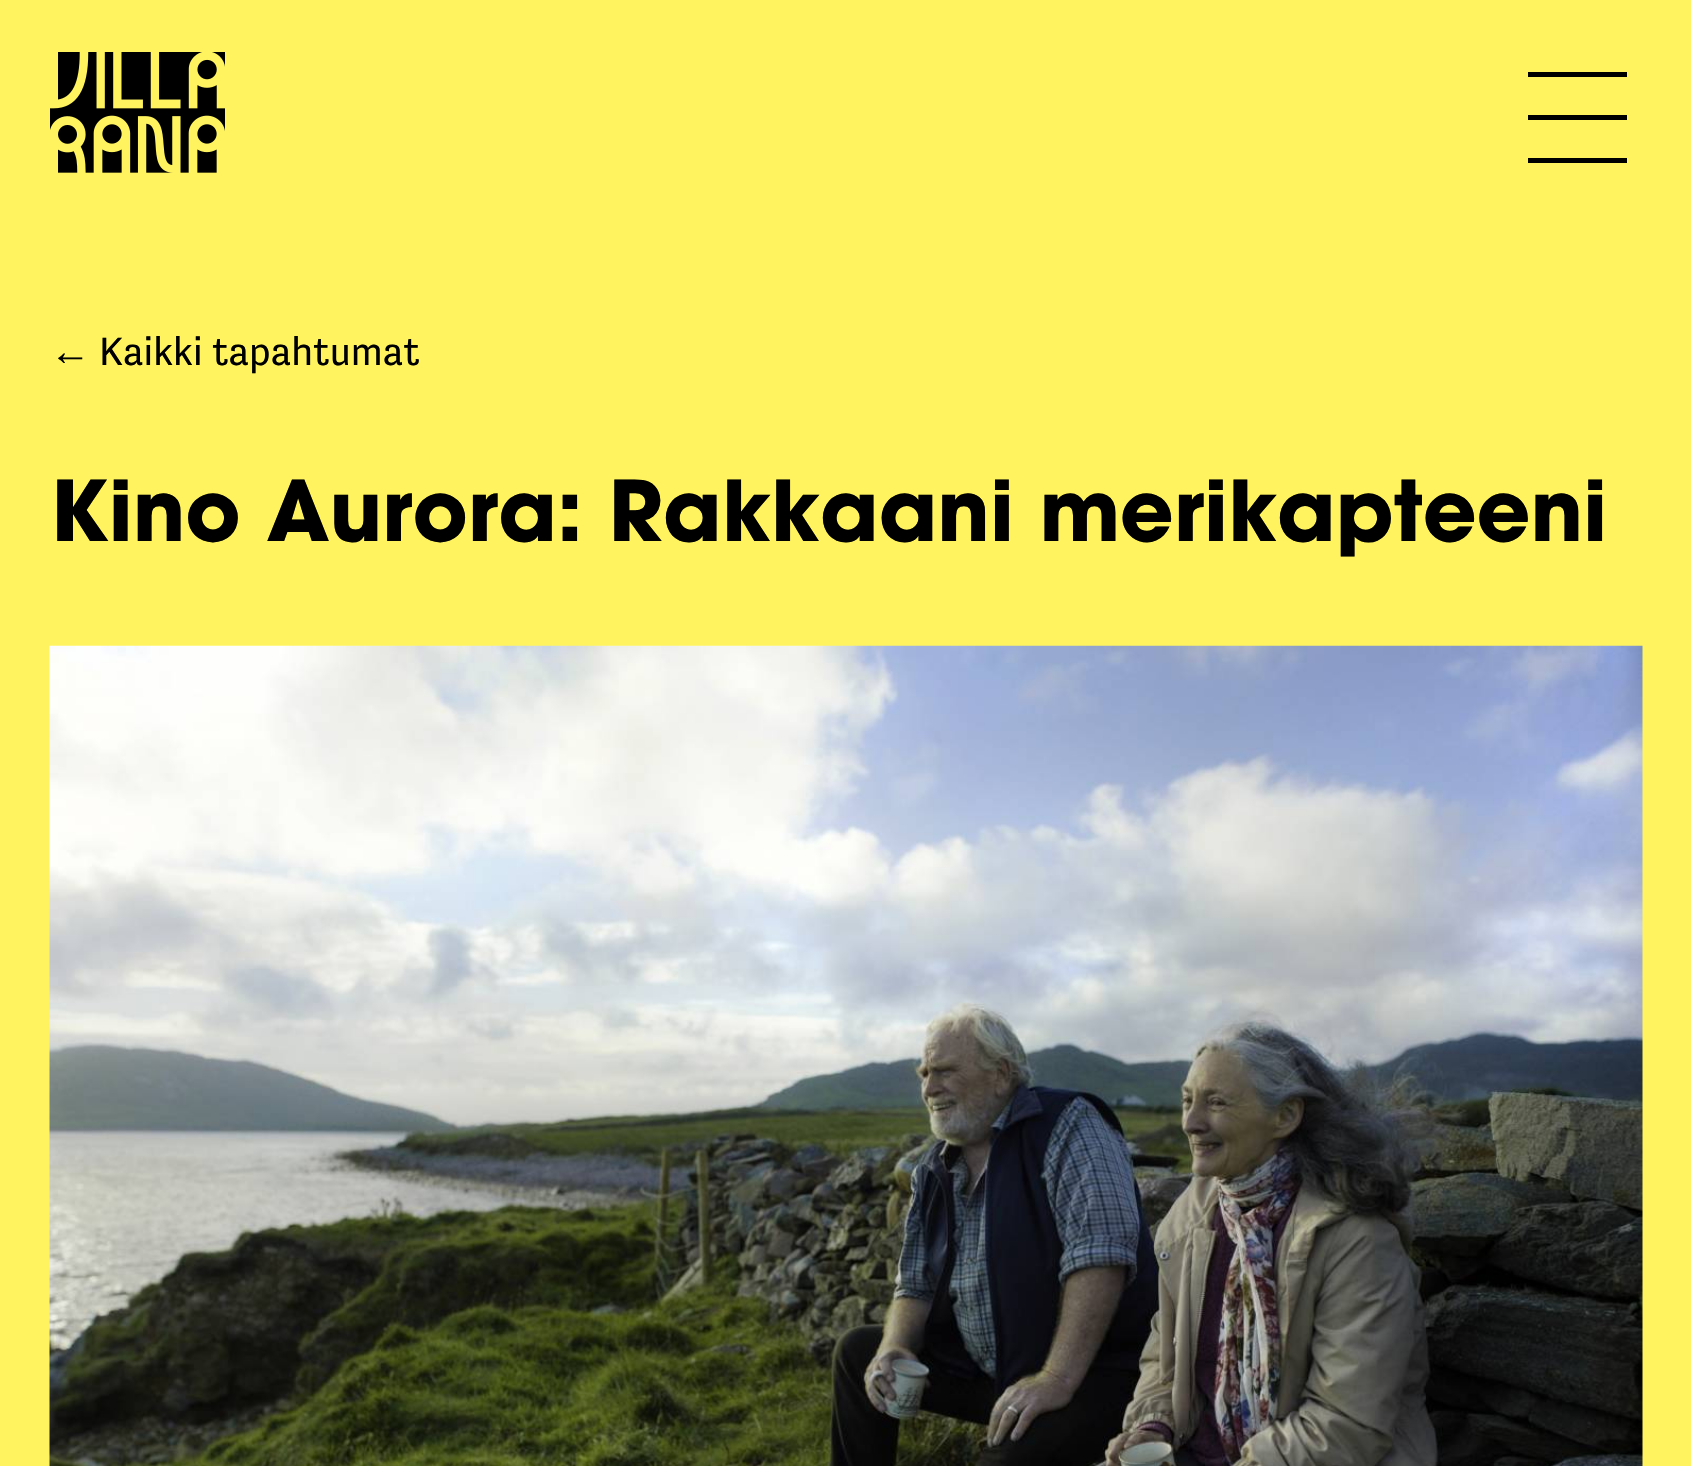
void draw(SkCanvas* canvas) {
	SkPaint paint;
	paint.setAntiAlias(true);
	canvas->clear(0xfffff45f);
	canvas->drawImageRect(SkImages::DeferredFromEncodedData(SkData::MakeFromFileName("img1.png")), SkRect::MakeXYWH(50, 52, 175, 121), SkSamplingOptions());
	paint.setColor(0xff000000);
	canvas->drawRect(SkRect::MakeXYWH(1528, 72, 99, 5), paint);
	canvas->drawRect(SkRect::MakeXYWH(1528, 115, 99, 5), paint);
	canvas->drawRect(SkRect::MakeXYWH(1528, 158, 99, 5), paint);
	SkFont f1(fontMgr->matchFamilyStyle("Liberation Sans", SkFontStyle::Normal()), 40.5);
	f1.setSubpixel(true);
	canvas->drawString("←", 50, 365, f1, paint);
	SkFont f2(fontMgr->matchFamilyStyle("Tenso", SkFontStyle::Normal()), 40.5);
	f2.setSubpixel(true);
	canvas->drawString("Kaikki tapahtumat", 99, 365, f2, paint);
	SkFont f3(fontMgr->matchFamilyStyle("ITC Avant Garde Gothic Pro", SkFontStyle::Bold()), 83.25);
	f3.setSubpixel(true);
	canvas->drawString("Kino Aurora: Rakkaani merikapteeni", 50, 541, f3, paint);
	canvas->drawImageRect(SkImages::DeferredFromEncodedData(SkData::MakeFromFileName("img2.png")), SkRect::MakeXYWH(49, 645, 1594, 821), SkSamplingOptions());
}
